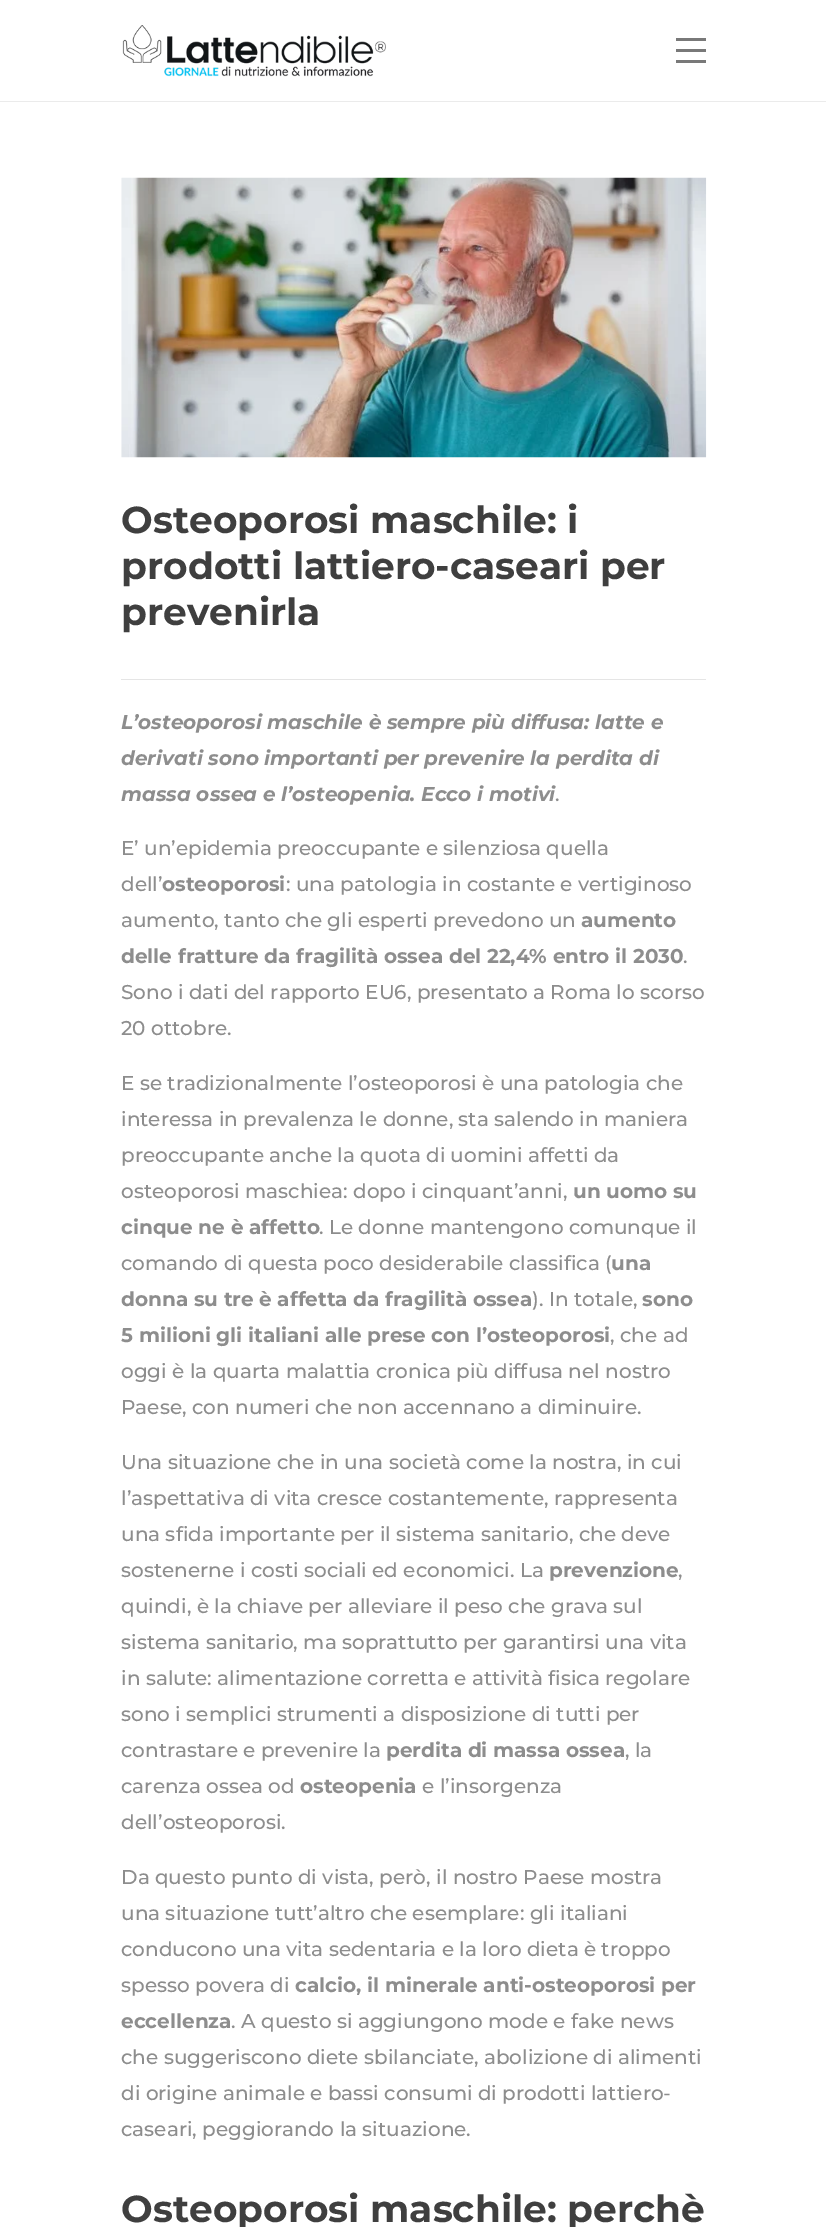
%!PS
<< /PageSize [826 2227] >> setpagedevice
/co { dup -16 bitshift 255 div exch dup -8 bitshift 255 and 255 div exch 255 and 255 div setrgbcolor } def
/fn { [ exch dup neg 0 0 3 -1 roll 0 0 ] selectfont } def
/tx { co fn moveto show } def
/bx { co rectfill } def
/im { 5 dict begin { /h /w /y /x /name } { exch def } forall
  gsave x y translate w h scale
  w h 8 [w 0 0 h 0 0] name (r) file false 3 colorimage grestore end } def
0 2227 translate 1 -1 scale
4 setmiterlimit
0 0 826 2227 16#FFFFFF bx
0 101 826 1 16#EBEBEB bx
(media/1.raw) 122 25 264 52 im
676 49 30 3 16#797979 bx
676 38 30 3 16#797979 bx
676 60 30 3 16#797979 bx
(media/2.raw) 121 177 586 281 im
121 679 585 1 16#E5E5E5 bx
(Osteoporosi maschile: i) 121 533 /Montserrat-Bold 37.5 16#3F3F3F tx
(prodotti lattiero-caseari per) 121 579 /Montserrat-Bold 37.5 16#3F3F3F tx
(prevenirla) 121 625 /Montserrat-Bold 37.5 16#3F3F3F tx
(L’osteoporosi maschile è sempre più diffusa: latte e) 121 729 /Montserrat-BoldItalic 20 16#8D8D8D tx
(derivati sono importanti per prevenire la perdita di) 121 765 /Montserrat-BoldItalic 20 16#8D8D8D tx
(massa ossea e l’osteopenia. Ecco i motivi) 121 801 /Montserrat-BoldItalic 20 16#8D8D8D tx
(.) 555 801 /Montserrat-Medium 20 16#8D8D8D tx
(E’ un’epidemia preoccupante e silenziosa quella) 121 855 /Montserrat-Medium 20 16#8D8D8D tx
(dell’) 121 891 /Montserrat-Medium 20 16#8D8D8D tx
(osteoporosi) 162 891 /Montserrat-Bold 20 16#8D8D8D tx
(: una patologia in costante e vertiginoso) 286 891 /Montserrat-Medium 20 16#8D8D8D tx
(aumento, tanto che gli esperti prevedono un) 121 927 /Montserrat-Medium 20 16#8D8D8D tx
(aumento) 581 927 /Montserrat-Bold 20 16#8D8D8D tx
(delle fratture da fragilità ossea del 22,4% entro il 2030) 121 963 /Montserrat-Bold 20 16#8D8D8D tx
(.) 683 963 /Montserrat-Medium 20 16#8D8D8D tx
(Sono i dati del rapporto EU6, presentato a Roma lo scorso) 121 999 /Montserrat-Medium 20 16#8D8D8D tx
(20 ottobre.) 121 1035 /Montserrat-Medium 20 16#8D8D8D tx
(E se tradizionalmente l’osteoporosi è una patologia che) 121 1090 /Montserrat-Medium 20 16#8D8D8D tx
(interessa in prevalenza le donne, sta salendo in maniera) 121 1126 /Montserrat-Medium 20 16#8D8D8D tx
(preoccupante anche la quota di uomini affetti da) 121 1162 /Montserrat-Medium 20 16#8D8D8D tx
(osteoporosi maschiea: dopo i cinquant’anni,) 121 1198 /Montserrat-Medium 20 16#8D8D8D tx
(un uomo su) 573 1198 /Montserrat-Bold 20 16#8D8D8D tx
(cinque ne è affetto) 121 1234 /Montserrat-Bold 20 16#8D8D8D tx
(. Le donne mantengono comunque il) 319 1234 /Montserrat-Medium 20 16#8D8D8D tx
(comando di questa poco desiderabile classifica \() 121 1270 /Montserrat-Medium 20 16#8D8D8D tx
(una) 611 1270 /Montserrat-Bold 20 16#8D8D8D tx
(donna su tre è affetta da fragilità ossea) 121 1306 /Montserrat-Bold 20 16#8D8D8D tx
(\). In totale,) 532 1306 /Montserrat-Medium 20 16#8D8D8D tx
(sono) 642 1306 /Montserrat-Bold 20 16#8D8D8D tx
(5 milioni gli italiani alle prese con l’osteoporosi) 121 1342 /Montserrat-Bold 20 16#8D8D8D tx
(, che ad) 610 1342 /Montserrat-Medium 20 16#8D8D8D tx
(oggi è la quarta malattia cronica più diffusa nel nostro) 121 1378 /Montserrat-Medium 20 16#8D8D8D tx
(Paese, con numeri che non accennano a diminuire.) 121 1414 /Montserrat-Medium 20 16#8D8D8D tx
(Una situazione che in una società come la nostra, in cui) 121 1469 /Montserrat-Medium 20 16#8D8D8D tx
(l’aspettativa di vita cresce costantemente, rappresenta) 121 1505 /Montserrat-Medium 20 16#8D8D8D tx
(una sfida importante per il sistema sanitario, che deve) 121 1541 /Montserrat-Medium 20 16#8D8D8D tx
(sostenerne i costi sociali ed economici. La) 121 1577 /Montserrat-Medium 20 16#8D8D8D tx
(prevenzione) 549 1577 /Montserrat-Bold 20 16#8D8D8D tx
(,) 678 1577 /Montserrat-Medium 20 16#8D8D8D tx
(quindi, è la chiave per alleviare il peso che grava sul) 121 1613 /Montserrat-Medium 20 16#8D8D8D tx
(sistema sanitario, ma soprattutto per garantirsi una vita) 121 1649 /Montserrat-Medium 20 16#8D8D8D tx
(in salute: alimentazione corretta e attività fisica regolare) 121 1685 /Montserrat-Medium 20 16#8D8D8D tx
(sono i semplici strumenti a disposizione di tutti per) 121 1721 /Montserrat-Medium 20 16#8D8D8D tx
(contrastare e prevenire la) 121 1757 /Montserrat-Medium 20 16#8D8D8D tx
(perdita di massa ossea) 386 1757 /Montserrat-Bold 20 16#8D8D8D tx
(, la) 625 1757 /Montserrat-Medium 20 16#8D8D8D tx
(carenza ossea od) 121 1793 /Montserrat-Medium 20 16#8D8D8D tx
(osteopenia) 300 1793 /Montserrat-Bold 20 16#8D8D8D tx
(e l’insorgenza) 422 1793 /Montserrat-Medium 20 16#8D8D8D tx
(dell’osteoporosi.) 121 1829 /Montserrat-Medium 20 16#8D8D8D tx
(Da questo punto di vista, però, il nostro Paese mostra) 121 1884 /Montserrat-Medium 20 16#8D8D8D tx
(una situazione tutt’altro che esemplare: gli italiani) 121 1920 /Montserrat-Medium 20 16#8D8D8D tx
(conducono una vita sedentaria e la loro dieta è troppo) 121 1956 /Montserrat-Medium 20 16#8D8D8D tx
(spesso povera di) 121 1992 /Montserrat-Medium 20 16#8D8D8D tx
(calcio, il minerale anti-osteoporosi per) 295 1992 /Montserrat-Bold 20 16#8D8D8D tx
(eccellenza) 121 2028 /Montserrat-Bold 20 16#8D8D8D tx
(. A questo si aggiungono mode e fake news) 231 2028 /Montserrat-Medium 20 16#8D8D8D tx
(che suggeriscono diete sbilanciate, abolizione di alimenti) 121 2064 /Montserrat-Medium 20 16#8D8D8D tx
(di origine animale e bassi consumi di prodotti lattiero-) 121 2100 /Montserrat-Medium 20 16#8D8D8D tx
(caseari, peggiorando la situazione.) 121 2136 /Montserrat-Medium 20 16#8D8D8D tx
(Osteoporosi maschile: perchè) 121 2222 /Montserrat-Bold 37.5 16#3F3F3F tx
showpage
